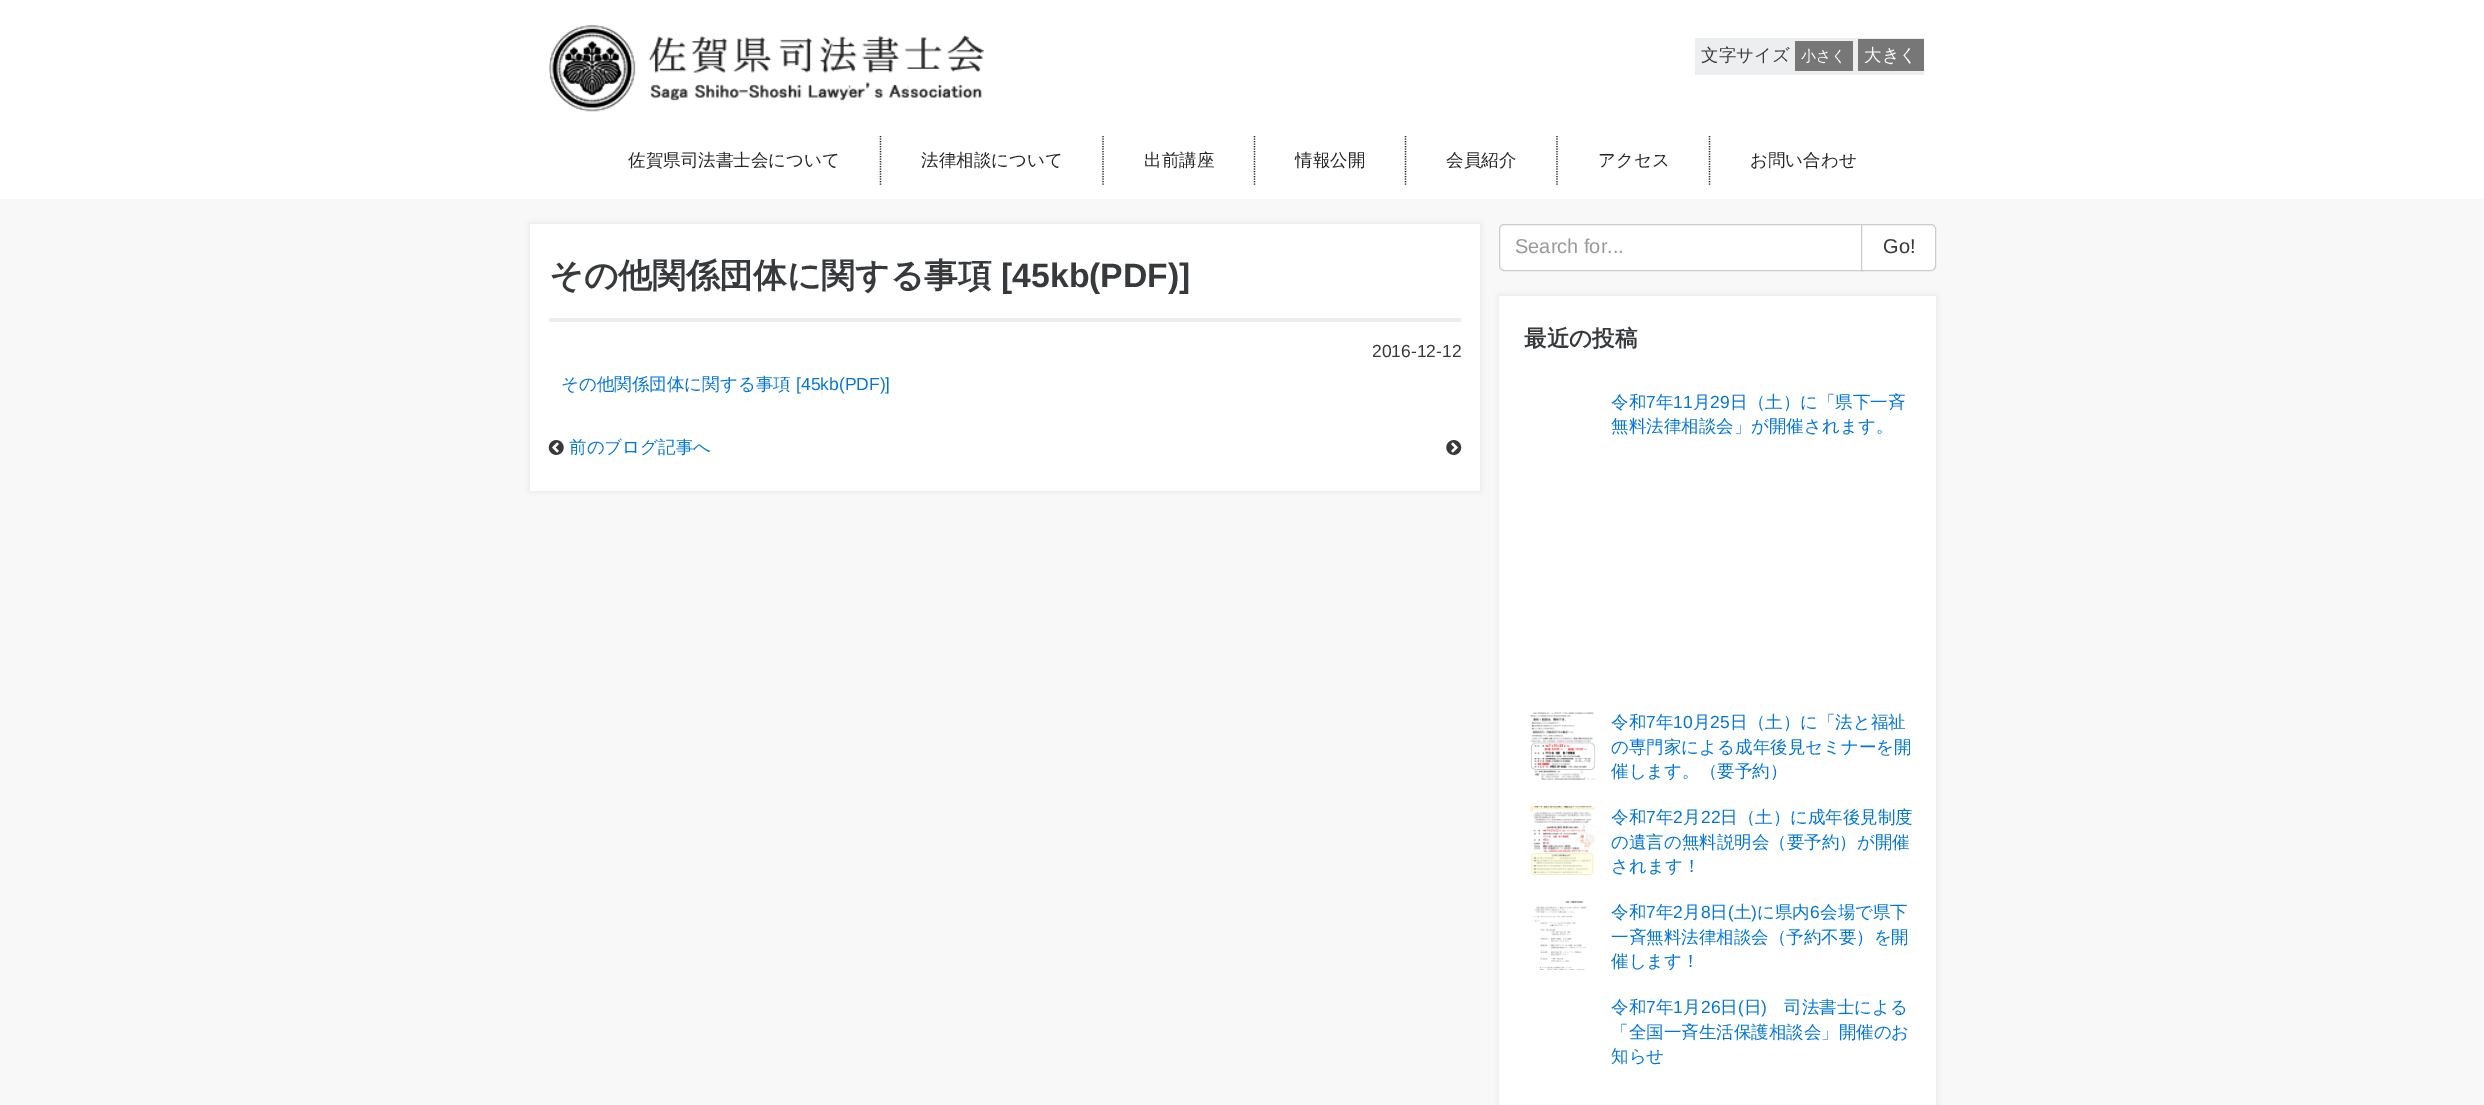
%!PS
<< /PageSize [2484 1105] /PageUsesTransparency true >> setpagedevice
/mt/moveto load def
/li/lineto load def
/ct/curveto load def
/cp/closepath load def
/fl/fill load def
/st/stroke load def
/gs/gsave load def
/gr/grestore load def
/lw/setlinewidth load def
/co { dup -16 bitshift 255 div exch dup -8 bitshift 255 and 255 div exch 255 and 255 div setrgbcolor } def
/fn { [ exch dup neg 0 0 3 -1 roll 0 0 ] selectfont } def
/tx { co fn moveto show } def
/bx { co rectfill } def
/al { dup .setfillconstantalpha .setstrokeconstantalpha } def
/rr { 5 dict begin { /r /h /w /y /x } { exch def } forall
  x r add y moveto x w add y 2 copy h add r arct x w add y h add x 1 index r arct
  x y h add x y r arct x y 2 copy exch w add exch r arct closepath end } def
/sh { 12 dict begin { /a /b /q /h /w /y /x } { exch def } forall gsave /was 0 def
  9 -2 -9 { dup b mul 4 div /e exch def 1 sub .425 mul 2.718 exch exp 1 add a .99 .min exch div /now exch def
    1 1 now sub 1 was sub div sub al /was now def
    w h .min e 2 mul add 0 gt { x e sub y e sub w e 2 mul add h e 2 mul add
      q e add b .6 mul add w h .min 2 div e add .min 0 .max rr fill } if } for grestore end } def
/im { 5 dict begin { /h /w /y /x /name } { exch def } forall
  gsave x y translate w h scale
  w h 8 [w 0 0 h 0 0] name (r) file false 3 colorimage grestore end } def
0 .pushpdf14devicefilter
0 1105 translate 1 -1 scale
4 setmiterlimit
0 0 2484 1105 16#F8F8F8 bx
0 0 2484 199 16#FFFFFF bx
(media/1.raw) 548 25 436 87 im
1695 38 229 37 16#ECEEEF bx
1795 41 58 30 16#777777 bx
1858 39 66 32 16#777777 bx
16#252525 co
1.2 lw
[1.25 1.25] 0 setdash
880.5 136 mt 880.5 186 li st
1103 136 mt 1103 186 li st
1254.5 136 mt 1254.5 186 li st
1405.5 136 mt 1405.5 186 li st
1557 136 mt 1557 186 li st
1709.5 136 mt 1709.5 186 li st
16#E4E4E4 co
530 224 950 267 0 3 1 sh
530 224 950 267 16#FFFFFF bx
549 318 912 4 16#EEEEEE bx
(media/2.raw) 548 440 16 15 im
(media/3.raw) 1446 440 16 15 im
16#FFFFFF co
1504 224.5 mt 1862.5 224.5 li 1862.5 270.5 li 1504 270.5 li 1501.5 270.5 1499.5 268.5 1499.5 266 ct 1499.5 229 li 1499.5 226.5 1501.5 224.5 1504 224.5 ct cp gs fl gr
16#CCCCCC co
1 lw
[] 0 setdash
st
16#FFFFFF co
1861.5 224.5 mt 1931 224.5 li 1933.5 224.5 1935.5 226.5 1935.5 229 ct 1935.5 266 li 1935.5 268.5 1933.5 270.5 1931 270.5 ct 1861.5 270.5 li cp gs fl gr
16#CCCCCC co
st
16#E4E4E4 co
1499 296 437 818 0 3 1 sh
1499 296 437 809 16#FFFFFF bx
(media/4.raw) 1530 712 66 68 im
(media/5.raw) 1530 806 69 69 im
(media/6.raw) 1532 901 55 69 im
(文字サイズ) 1701 61 /WenQuanYiZenHei-Medium 17.5 16#373A3C tx
(小さく) 1801 61 /WenQuanYiZenHei-Medium 15 16#FFFFFF tx
(大きく) 1864 61 /WenQuanYiZenHei-Medium 17.5 16#FFFFFF tx
(佐賀県司法書士会について) 628 166 /WenQuanYiZenHei-Medium 17.5 16#252525 tx
(法律相談について) 921 166 /WenQuanYiZenHei-Medium 17.5 16#252525 tx
(出前講座) 1144 166 /WenQuanYiZenHei-Medium 17.5 16#252525 tx
(情報公開) 1295 166 /WenQuanYiZenHei-Medium 17.5 16#252525 tx
(会員紹介) 1446 166 /WenQuanYiZenHei-Medium 17.5 16#252525 tx
(アクセス) 1598 166 /WenQuanYiZenHei-Medium 17.5 16#252525 tx
(お問い合わせ) 1750 166 /WenQuanYiZenHei-Medium 17.5 16#252525 tx
(その他関係団体に関する事項) 549 287 /WenQuanYiZenHei-Bold 33.75 16#373A3C tx
([45kb\(PDF\)]) 1001 287 /LiberationSans-Bold 33.75 16#373A3C tx
(2016-12-12) 1372 357 /LiberationSans-Regular 17.5 16#373A3C tx
(その他関係団体に関する事項) 561 390 /WenQuanYiZenHei-Medium 17.5 16#0275D8 tx
([45kb\(PDF\)]) 796 390 /LiberationSans-Regular 17.5 16#0275D8 tx
(前のブログ記事へ) 569 453 /WenQuanYiZenHei-Medium 17.5 16#0275D8 tx
(Search for...) 1515 253 /LiberationSans-Regular 20 16#999999 tx
(Go!) 1883 253 /LiberationSans-Regular 20 16#373A3C tx
(最近の投稿) 1524 346 /WenQuanYiZenHei-Bold 22.5 16#373A3C tx
(令和) 1611 408 /WenQuanYiZenHei-Medium 17.5 16#0275D8 tx
(7) 1646 408 /LiberationSans-Regular 17.5 16#0275D8 tx
(年) 1656 408 /WenQuanYiZenHei-Medium 17.5 16#0275D8 tx
(11) 1673 408 /LiberationSans-Regular 17.5 16#0275D8 tx
(月) 1693 408 /WenQuanYiZenHei-Medium 17.5 16#0275D8 tx
(29) 1710 408 /LiberationSans-Regular 17.5 16#0275D8 tx
(日（土）に「県下一斉) 1730 408 /WenQuanYiZenHei-Medium 17.5 16#0275D8 tx
(無料法律相談会」が開催されます。) 1611 432 /WenQuanYiZenHei-Medium 17.5 16#0275D8 tx
(令和) 1611 728 /WenQuanYiZenHei-Medium 17.5 16#0275D8 tx
(7) 1646 728 /LiberationSans-Regular 17.5 16#0275D8 tx
(年) 1656 728 /WenQuanYiZenHei-Medium 17.5 16#0275D8 tx
(10) 1673 728 /LiberationSans-Regular 17.5 16#0275D8 tx
(月) 1693 728 /WenQuanYiZenHei-Medium 17.5 16#0275D8 tx
(25) 1710 728 /LiberationSans-Regular 17.5 16#0275D8 tx
(日（土）に「法と福祉) 1730 728 /WenQuanYiZenHei-Medium 17.5 16#0275D8 tx
(の専門家による成年後見セミナーを開) 1611 753 /WenQuanYiZenHei-Medium 17.5 16#0275D8 tx
(催します。（要予約）) 1611 777 /WenQuanYiZenHei-Medium 17.5 16#0275D8 tx
(令和) 1611 823 /WenQuanYiZenHei-Medium 17.5 16#0275D8 tx
(7) 1646 823 /LiberationSans-Regular 17.5 16#0275D8 tx
(年) 1656 823 /WenQuanYiZenHei-Medium 17.5 16#0275D8 tx
(2) 1673 823 /LiberationSans-Regular 17.5 16#0275D8 tx
(月) 1683 823 /WenQuanYiZenHei-Medium 17.5 16#0275D8 tx
(22) 1701 823 /LiberationSans-Regular 17.5 16#0275D8 tx
(日（土）に成年後見制度) 1720 823 /WenQuanYiZenHei-Medium 17.5 16#0275D8 tx
(の遺言の無料説明会（要予約）が開催) 1611 848 /WenQuanYiZenHei-Medium 17.5 16#0275D8 tx
(されます！) 1611 872 /WenQuanYiZenHei-Medium 17.5 16#0275D8 tx
(令和) 1611 918 /WenQuanYiZenHei-Medium 17.5 16#0275D8 tx
(7) 1646 918 /LiberationSans-Regular 17.5 16#0275D8 tx
(年) 1656 918 /WenQuanYiZenHei-Medium 17.5 16#0275D8 tx
(2) 1673 918 /LiberationSans-Regular 17.5 16#0275D8 tx
(月) 1683 918 /WenQuanYiZenHei-Medium 17.5 16#0275D8 tx
(8) 1701 918 /LiberationSans-Regular 17.5 16#0275D8 tx
(日) 1710 918 /WenQuanYiZenHei-Medium 17.5 16#0275D8 tx
(\() 1728 918 /LiberationSans-Regular 17.5 16#0275D8 tx
(土) 1734 918 /WenQuanYiZenHei-Medium 17.5 16#0275D8 tx
(\)) 1751 918 /LiberationSans-Regular 17.5 16#0275D8 tx
(に県内) 1757 918 /WenQuanYiZenHei-Medium 17.5 16#0275D8 tx
(6) 1810 918 /LiberationSans-Regular 17.5 16#0275D8 tx
(会場で県下) 1820 918 /WenQuanYiZenHei-Medium 17.5 16#0275D8 tx
(一斉無料法律相談会（予約不要）を開) 1611 943 /WenQuanYiZenHei-Medium 17.5 16#0275D8 tx
(催します！) 1611 967 /WenQuanYiZenHei-Medium 17.5 16#0275D8 tx
(令和) 1611 1013 /WenQuanYiZenHei-Medium 17.5 16#0275D8 tx
(7) 1646 1013 /LiberationSans-Regular 17.5 16#0275D8 tx
(年) 1656 1013 /WenQuanYiZenHei-Medium 17.5 16#0275D8 tx
(1) 1673 1013 /LiberationSans-Regular 17.5 16#0275D8 tx
(月) 1683 1013 /WenQuanYiZenHei-Medium 17.5 16#0275D8 tx
(26) 1701 1013 /LiberationSans-Regular 17.5 16#0275D8 tx
(日) 1720 1013 /WenQuanYiZenHei-Medium 17.5 16#0275D8 tx
(\() 1738 1013 /LiberationSans-Regular 17.5 16#0275D8 tx
(日) 1744 1013 /WenQuanYiZenHei-Medium 17.5 16#0275D8 tx
(\)) 1761 1013 /LiberationSans-Regular 17.5 16#0275D8 tx
(司法書士による) 1784 1013 /WenQuanYiZenHei-Medium 17.5 16#0275D8 tx
(「全国一斉生活保護相談会」開催のお) 1611 1038 /WenQuanYiZenHei-Medium 17.5 16#0275D8 tx
(知らせ) 1611 1062 /WenQuanYiZenHei-Medium 17.5 16#0275D8 tx
.poppdf14devicefilter showpage
